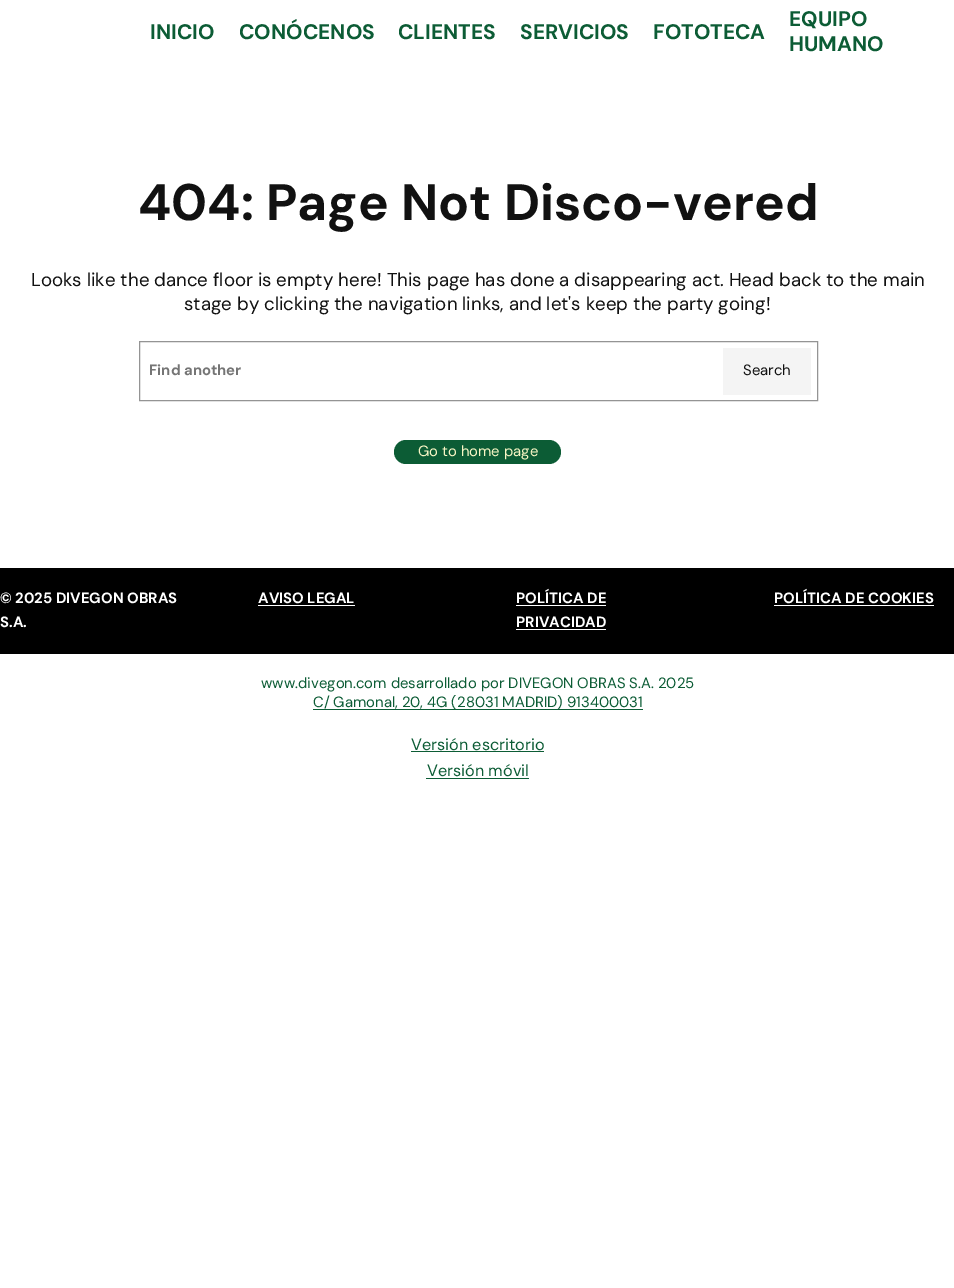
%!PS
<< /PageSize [954 1288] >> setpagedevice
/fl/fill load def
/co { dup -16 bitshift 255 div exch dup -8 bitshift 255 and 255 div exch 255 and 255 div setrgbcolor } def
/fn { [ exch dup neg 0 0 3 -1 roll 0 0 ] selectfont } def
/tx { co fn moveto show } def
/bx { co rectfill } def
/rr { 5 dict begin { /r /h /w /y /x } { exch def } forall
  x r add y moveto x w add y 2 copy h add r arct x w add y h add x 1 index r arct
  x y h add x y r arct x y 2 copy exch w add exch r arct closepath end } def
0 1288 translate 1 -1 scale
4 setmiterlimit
0 0 954 1288 16#FFFFFF bx
16#949494 co
139.5 341.5 678 59 rectstroke
723 348 88 47 16#F4F4F4 bx
16#0C5C35 co
394 440 167 24 12 rr fl
0 568 954 86 16#000000 bx
258 605 97 1 16#FFFFFF bx
516 605 90 1 16#FFFFFF bx
516 629 90 1 16#FFFFFF bx
774 605 160 1 16#FFFFFF bx
313 709 330 1 16#0C5C35 bx
411 751 133 1 16#0C5C35 bx
426 778 103 1 16#0C5C35 bx
(INICIO) 150 39 /DMSans-Bold 21 16#0C5C35 tx
(CONÓCENOS) 239 39 /DMSans-Bold 21 16#0C5C35 tx
(CLIENTES) 398 39 /DMSans-Bold 21 16#0C5C35 tx
(SERVICIOS) 520 39 /DMSans-Bold 21 16#0C5C35 tx
(FOTOTECA) 653 39 /DMSans-Bold 21 16#0C5C35 tx
(EQUIPO) 789 26 /DMSans-Bold 21 16#0C5C35 tx
(HUMANO) 789 51 /DMSans-Bold 21 16#0C5C35 tx
(404: Page Not Disco-vered) 138 220 /DMSans-Bold 51.25 16#111111 tx
(Looks like the dance floor is empty here! This page has done a disappearing act. Head back to the main) 31 286 /DMSans-Regular 18.7 16#111111 tx
(stage by clicking the navigation links, and let's keep the party going!) 184 310 /DMSans-Regular 18.7 16#111111 tx
(Find another) 149 375 /DMSans-Bold 14.9 16#757575 tx
(Search) 743 375 /DMSans-Regular 14.9 16#111111 tx
(Go to home page) 418 456 /DMSans-Regular 14.9 16#F8F6C5 tx
(© 2025 DIVEGON OBRAS) 0 603 /DMSans-Bold 14.9 16#FFFFFF tx
(S.A.) 0 627 /DMSans-Bold 14.9 16#FFFFFF tx
(AVISO LEGAL) 258 603 /DMSans-Bold 14.9 16#FFFFFF tx
(POLÍTICA DE) 516 603 /DMSans-Bold 14.9 16#FFFFFF tx
(PRIVACIDAD) 516 627 /DMSans-Bold 14.9 16#FFFFFF tx
(POLÍTICA DE COOKIES) 774 603 /DMSans-Bold 14.9 16#FFFFFF tx
(www.divegon.com desarrollado por DIVEGON OBRAS S.A. 2025) 261 688 /DMSans-Regular 14.9 16#0C5C35 tx
(C/ Gamonal, 20, 4G \(28031 MADRID\) 913400031) 313 707 /DMSans-Regular 14.9 16#0C5C35 tx
(Versión escritorio) 411 750 /DMSans-Regular 16.25 16#0C5C35 tx
(Versión móvil) 427 776 /DMSans-Regular 16.25 16#0C5C35 tx
showpage
